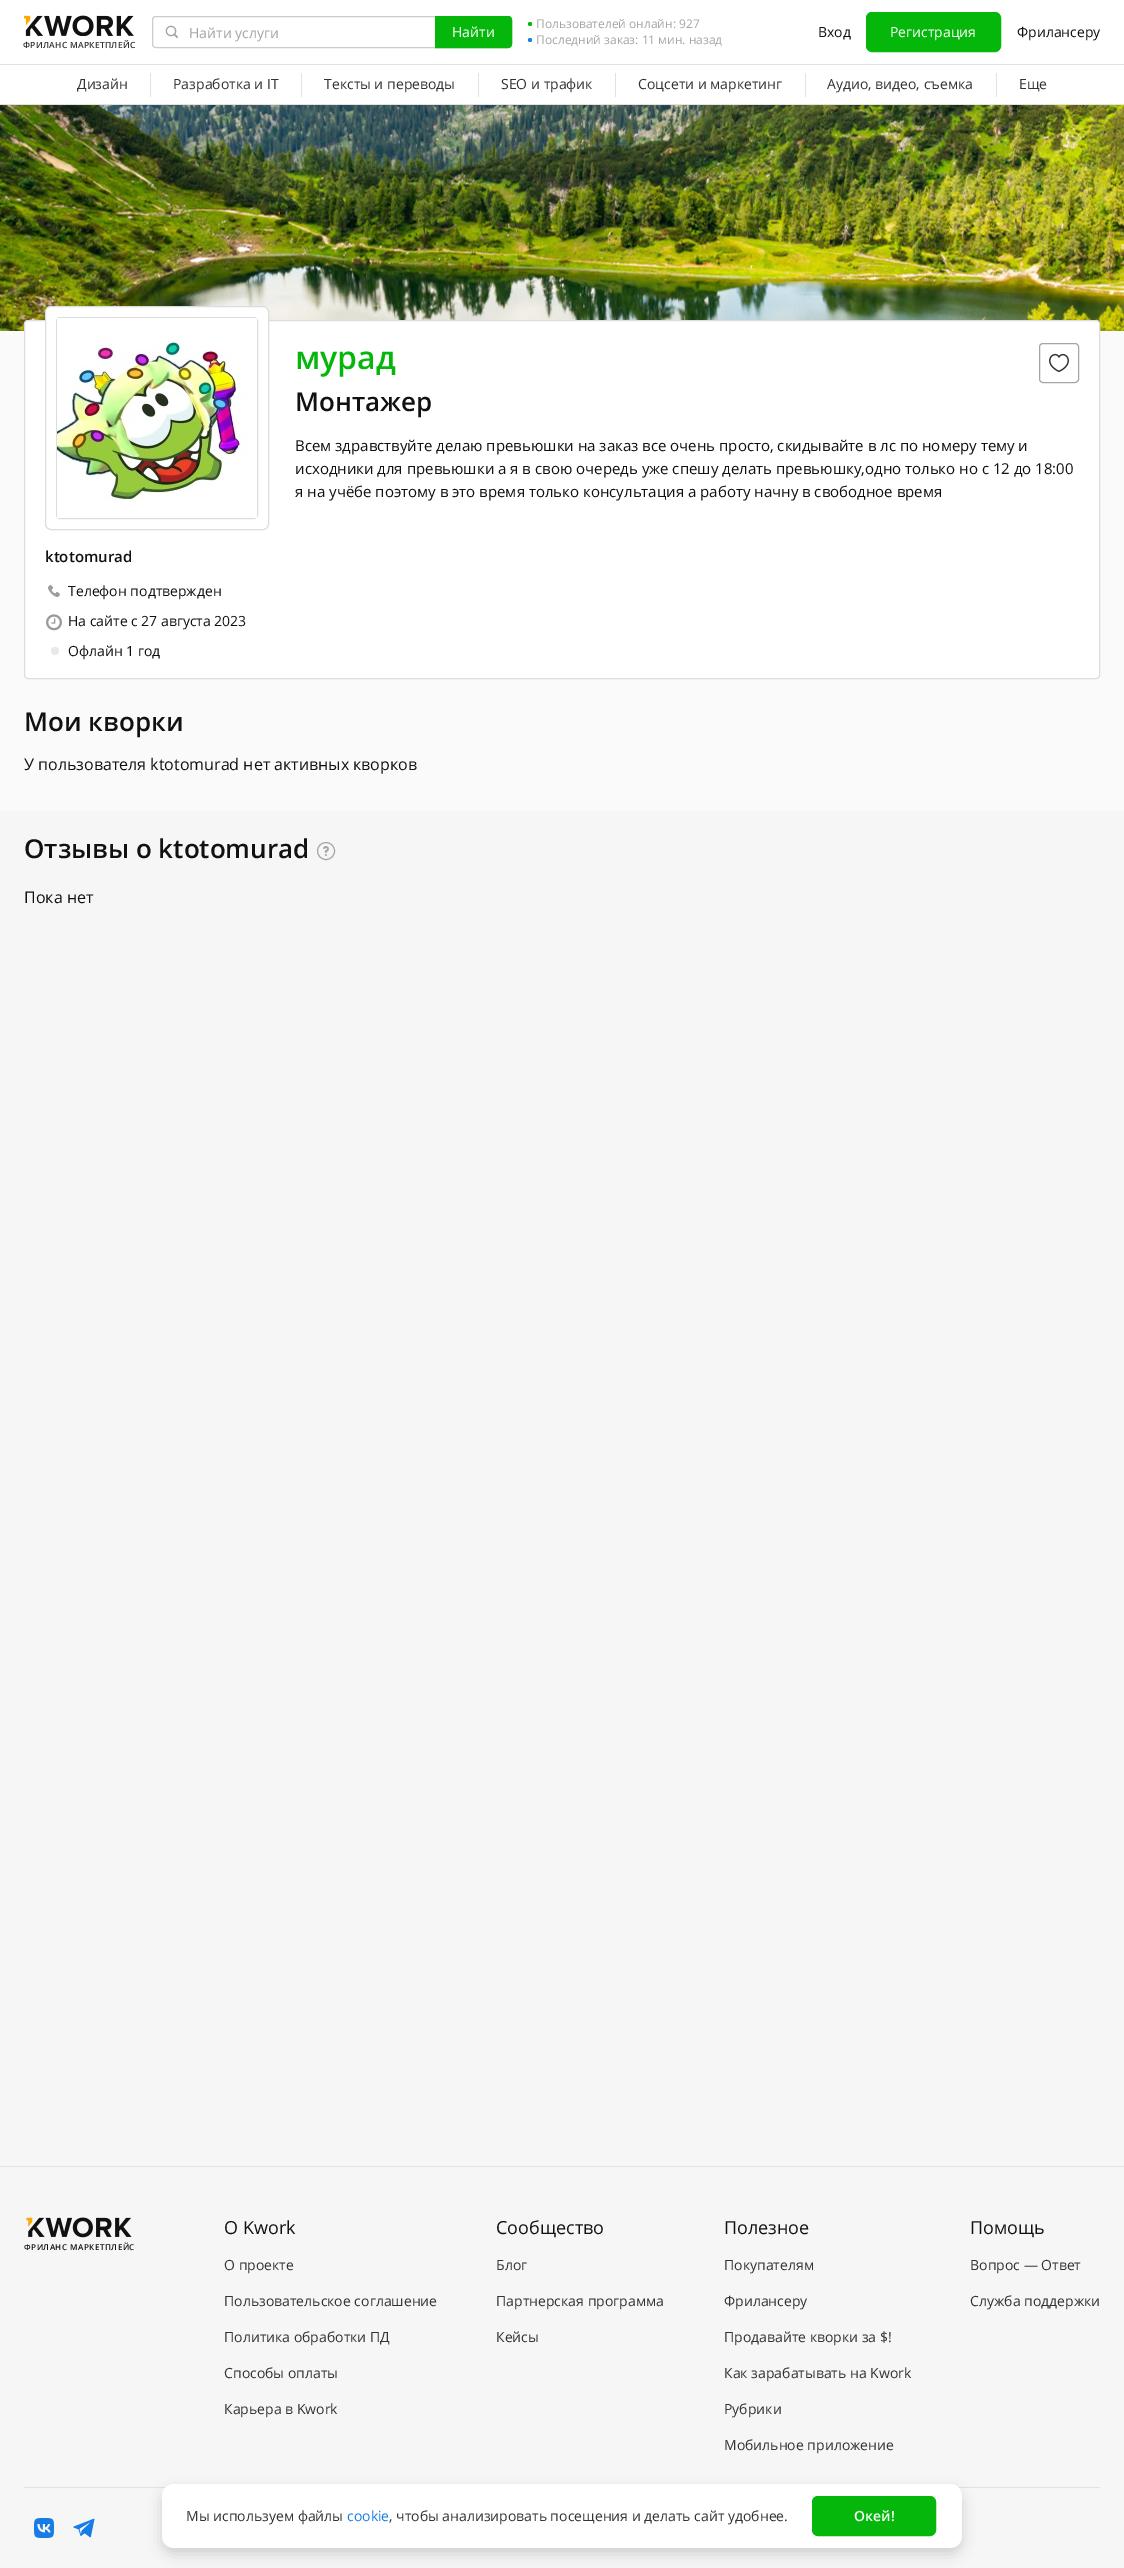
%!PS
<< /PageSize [1124 2568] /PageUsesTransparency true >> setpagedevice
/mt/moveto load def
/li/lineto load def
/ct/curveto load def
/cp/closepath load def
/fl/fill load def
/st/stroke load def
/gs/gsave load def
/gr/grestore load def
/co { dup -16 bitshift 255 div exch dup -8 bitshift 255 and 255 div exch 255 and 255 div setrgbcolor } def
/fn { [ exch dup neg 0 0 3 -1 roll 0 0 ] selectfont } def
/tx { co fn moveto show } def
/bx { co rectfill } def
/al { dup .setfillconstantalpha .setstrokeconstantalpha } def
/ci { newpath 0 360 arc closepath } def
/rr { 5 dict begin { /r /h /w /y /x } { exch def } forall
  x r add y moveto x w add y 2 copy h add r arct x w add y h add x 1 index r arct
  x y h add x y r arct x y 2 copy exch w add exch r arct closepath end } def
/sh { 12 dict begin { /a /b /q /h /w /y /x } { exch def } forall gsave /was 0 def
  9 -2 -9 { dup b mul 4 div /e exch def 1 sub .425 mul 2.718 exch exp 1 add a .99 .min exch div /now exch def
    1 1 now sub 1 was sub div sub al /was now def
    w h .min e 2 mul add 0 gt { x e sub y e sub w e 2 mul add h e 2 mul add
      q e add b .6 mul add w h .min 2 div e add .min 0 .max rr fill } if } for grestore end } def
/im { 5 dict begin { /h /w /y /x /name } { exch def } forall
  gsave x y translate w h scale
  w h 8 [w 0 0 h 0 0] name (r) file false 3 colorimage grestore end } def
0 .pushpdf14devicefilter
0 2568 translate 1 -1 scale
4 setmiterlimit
0 0 1124 2568 16#F6F6F6 bx
0 0 1124 104 16#FFFFFF bx
0 104 1124 1 16#E2E2E2 bx
16#CCCCCC co
152.5 16.5 359 31 3.5 rr st
(media/1.raw) 165 25 13 13 im
16#04B70A co
435.5 16.5 mt 508 16.5 li 510 16.5 511.5 18 511.5 20 ct 511.5 44 li 511.5 46 510 47.5 508 47.5 ct 435.5 47.5 li cp gs fl gr
st
530 24 2 ci fl
16#177DE5 co
530 40 2 ci fl
16#04B70A co
866.5 12.5 134 39 5.5 rr gs fl gr
st
(media/2.raw) 24 15 110 21 im
0 64 1124 1 16#E2E2E2 bx
150 73 1 24 16#E2E2E2 bx
301 73 1 24 16#E2E2E2 bx
478 73 1 24 16#E2E2E2 bx
615 73 1 24 16#E2E2E2 bx
805 73 1 24 16#E2E2E2 bx
996 73 1 24 16#E2E2E2 bx
(media/3.raw) 0 105 1124 226 im
0 331 1124 480 16#FAFAFA bx
16#FFFFFF co
24.5 320.5 1075 358 3.5 rr gs fl gr
16#DDDDDD co
st
16#A5A5A5 co
1039.5 343.5 39 39 3.5 rr st
(media/4.raw) 1049 353 20 20 im
16#FFFFFF co
45.5 306.5 223 223 5.5 rr gs fl gr
16#DDDDDD co
st
56.5 317.5 201 201 3.5 rr st
(media/5.raw) 57 318 200 200 im
(media/6.raw) 48 585 12 12 im
(media/7.raw) 46 614 16 17 im
16#E8E8E8 co
55 651 4 ci fl
16#A5A5A5 co
326 851 8.5 ci st
(media/8.raw) 323 846 6 10 im
0 2166 1124 1 16#E2E2E2 bx
(media/9.raw) 26 2217 106 21 im
24 2487 1076 1 16#E2E2E2 bx
(media/10.raw) 34 2518 20 20 im
(media/11.raw) 73 2518 22 20 im
16#000000 co
162 2490 800 64 12 7 .16 sh
16#FFFFFF co
162 2484 800 64 12 rr fl
16#04B70A co
812.5 2496.5 123 39 5.5 rr gs fl gr
st
(Найти услуги) 189 38 /OpenSans-Regular 14 16#A5A5A5 tx
(Найти) 452 37 /OpenSans-Regular 14 16#FFFFFF tx
(Пользователей онлайн: 927) 536 28 /OpenSans-Regular 12 16#A5A5A5 tx
(Последний заказ: 11 мин. назад) 536 44 /OpenSans-Regular 12 16#A5A5A5 tx
(Вход) 818 37 /OpenSans-Regular 14 16#111111 tx
(Регистрация) 890 37 /OpenSans-Regular 14 16#FFFFFF tx
(Фрилансеру) 1017 37 /OpenSans-Regular 14 16#111111 tx
/OpenSans-SemiBold 8.5 fn
16#333333 co
23 48 mt .25 0 (ФРИЛАНС МАРКЕТПЛЕЙС) ashow
(Дизайн) 77 89 /OpenSans-Regular 14 16#333333 tx
(Разработка и IT) 173 89 /OpenSans-Regular 14 16#333333 tx
(Тексты и переводы) 324 89 /OpenSans-Regular 14 16#333333 tx
(SEO и трафик) 501 89 /OpenSans-Regular 14 16#333333 tx
(Соцсети и маркетинг) 638 89 /OpenSans-Regular 14 16#333333 tx
(Аудио, видео, съемка) 827 89 /OpenSans-Regular 14 16#333333 tx
(Еще) 1019 89 /OpenSans-Regular 14 16#333333 tx
(мурад) 295 369 /OpenSans-SemiBold 32 16#04B70A tx
(Монтажер) 295 411 /OpenSans-SemiBold 26 16#111111 tx
(Всем здравствуйте делаю превьюшки на заказ все очень просто, скидывайте в лс по номеру тему и) 295 451 /OpenSans-Regular 15 16#111111 tx
(исходники для превьюшки а я в свою очередь уже спешу делать превьюшку,одно только но с 12 до 18:00) 295 474 /OpenSans-Regular 15 16#111111 tx
(я на учёбе поэтому в это время только консультация а работу начну в свободное время) 295 497 /OpenSans-Regular 15 16#111111 tx
(ktotomurad) 45 562 /OpenSans-SemiBold 15 16#111111 tx
(Телефон подтвержден) 68 596 /OpenSans-Regular 14 16#111111 tx
(На сайте с 27 августа 2023) 68 626 /OpenSans-Regular 14 16#111111 tx
(Офлайн 1 год) 68 656 /OpenSans-Regular 14 16#111111 tx
(Мои кворки) 24 731 /OpenSans-SemiBold 26 16#111111 tx
(У пользователя ktotomurad нет активных кворков) 24 770 /OpenSans-Regular 16 16#111111 tx
(Отзывы о ktotomurad) 24 858 /OpenSans-SemiBold 26 16#111111 tx
(Пока нет) 24 903 /OpenSans-Regular 16 16#111111 tx
/OpenSans-SemiBold 8 fn
24 2250 mt .5 0 (ФРИЛАНС МАРКЕТПЛЕЙС) ashow
(О Kwork) 224 2234 /OpenSans-Regular 18 16#111111 tx
(О проекте) 224 2270 /OpenSans-Regular 14 16#333333 tx
(Пользовательское соглашение) 224 2306 /OpenSans-Regular 14 16#333333 tx
(Политика обработки ПД) 224 2342 /OpenSans-Regular 14 16#333333 tx
(Способы оплаты) 224 2378 /OpenSans-Regular 14 16#333333 tx
(Карьера в Kwork) 224 2414 /OpenSans-Regular 14 16#333333 tx
(Сообщество) 496 2234 /OpenSans-Regular 18 16#111111 tx
(Блог) 496 2270 /OpenSans-Regular 14 16#333333 tx
(Партнерская программа) 496 2306 /OpenSans-Regular 14 16#333333 tx
(Кейсы) 496 2342 /OpenSans-Regular 14 16#333333 tx
(Полезное) 724 2234 /OpenSans-Regular 18 16#111111 tx
(Покупателям) 724 2270 /OpenSans-Regular 14 16#333333 tx
(Фрилансеру) 724 2306 /OpenSans-Regular 14 16#333333 tx
(Продавайте кворки за $!) 724 2342 /OpenSans-Regular 14 16#333333 tx
(Как зарабатывать на Kwork) 724 2378 /OpenSans-Regular 14 16#333333 tx
(Рубрики) 724 2414 /OpenSans-Regular 14 16#333333 tx
(Мобильное приложение) 724 2450 /OpenSans-Regular 14 16#333333 tx
(Помощь) 970 2234 /OpenSans-Regular 18 16#111111 tx
(Вопрос — Ответ) 970 2270 /OpenSans-Regular 14 16#333333 tx
(Служба поддержки) 970 2306 /OpenSans-Regular 14 16#333333 tx
(Мы используем файлы) 186 2521 /OpenSans-Regular 14 16#333333 tx
(cookie) 347 2521 /OpenSans-Regular 14 16#177DE5 tx
(, чтобы анализировать посещения и делать сайт удобнее.) 389 2521 /OpenSans-Regular 14 16#333333 tx
(Окей!) 854 2521 /OpenSans-SemiBold 14 16#FFFFFF tx
.poppdf14devicefilter showpage
